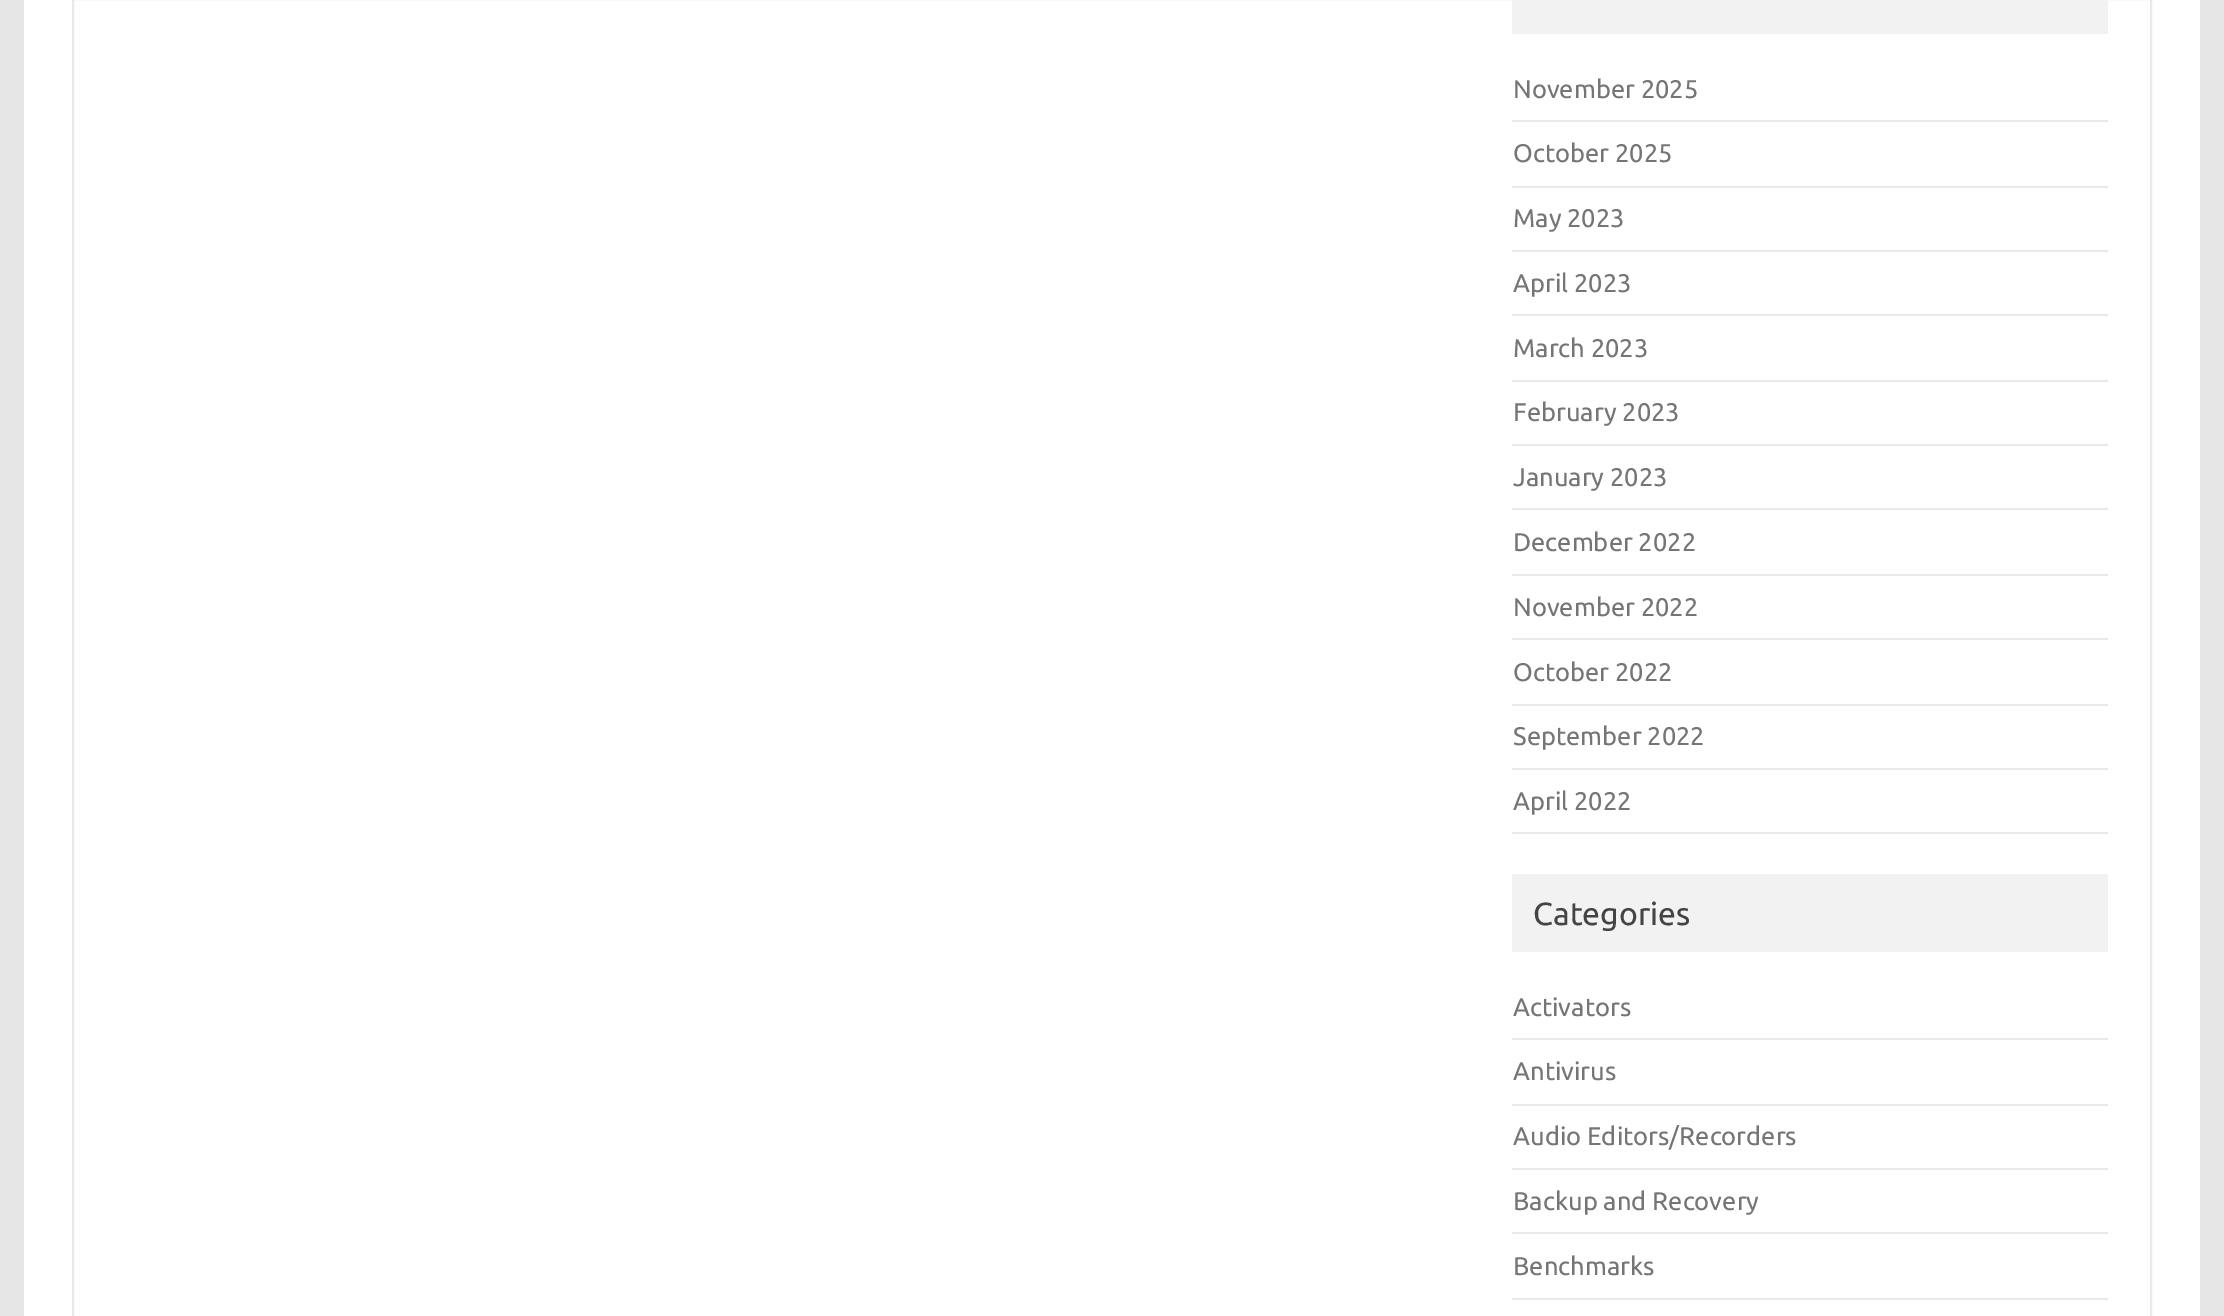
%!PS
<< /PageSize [2224 1316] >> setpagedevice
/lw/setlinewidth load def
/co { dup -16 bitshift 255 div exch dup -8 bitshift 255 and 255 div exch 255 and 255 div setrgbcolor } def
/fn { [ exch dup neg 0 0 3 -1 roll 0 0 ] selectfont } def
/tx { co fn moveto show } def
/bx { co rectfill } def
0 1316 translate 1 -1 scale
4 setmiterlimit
0 0 2224 1316 16#E6E6E6 bx
24 0 2176 1316 16#FFFFFF bx
16#E9E9E9 co
2 lw
73 -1 2078 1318 rectstroke
1512 0 596 34 16#F2F2F2 bx
1512 120 596 2 16#E9E9E9 bx
1512 186 596 2 16#E9E9E9 bx
1512 250 596 2 16#E9E9E9 bx
1512 314 596 2 16#E9E9E9 bx
1512 380 596 2 16#E9E9E9 bx
1512 444 596 2 16#E9E9E9 bx
1512 508 596 2 16#E9E9E9 bx
1512 574 596 2 16#E9E9E9 bx
1512 638 596 2 16#E9E9E9 bx
1512 704 596 2 16#E9E9E9 bx
1512 768 596 2 16#E9E9E9 bx
1512 832 596 2 16#E9E9E9 bx
1512 874 596 78 16#F2F2F2 bx
1512 1038 596 2 16#E9E9E9 bx
1512 1104 596 2 16#E9E9E9 bx
1512 1168 596 2 16#E9E9E9 bx
1512 1232 596 2 16#E9E9E9 bx
1512 1298 596 2 16#E9E9E9 bx
(November 2025) 1513 98 /Ubuntu-Regular 25.5 16#757575 tx
(October 2025) 1513 162 /Ubuntu-Regular 25.5 16#757575 tx
(May 2023) 1513 227 /Ubuntu-Regular 25.5 16#757575 tx
(April 2023) 1513 292 /Ubuntu-Regular 25.5 16#757575 tx
(March 2023) 1513 357 /Ubuntu-Regular 25.5 16#757575 tx
(February 2023) 1513 421 /Ubuntu-Regular 25.5 16#757575 tx
(January 2023) 1513 486 /Ubuntu-Regular 25.5 16#757575 tx
(December 2022) 1513 551 /Ubuntu-Regular 25.5 16#757575 tx
(November 2022) 1513 616 /Ubuntu-Regular 25.5 16#757575 tx
(October 2022) 1513 681 /Ubuntu-Regular 25.5 16#757575 tx
(September 2022) 1513 745 /Ubuntu-Regular 25.5 16#757575 tx
(April 2022) 1513 810 /Ubuntu-Regular 25.5 16#757575 tx
(Categories) 1533 925 /Ubuntu-Regular 32 16#444444 tx
(Activators) 1513 1016 /Ubuntu-Regular 25.5 16#757575 tx
(Antivirus) 1513 1080 /Ubuntu-Regular 25.5 16#757575 tx
(Audio Editors/Recorders) 1513 1145 /Ubuntu-Regular 25.5 16#757575 tx
(Backup and Recovery) 1513 1210 /Ubuntu-Regular 25.5 16#757575 tx
(Benchmarks) 1513 1275 /Ubuntu-Regular 25.5 16#757575 tx
showpage
